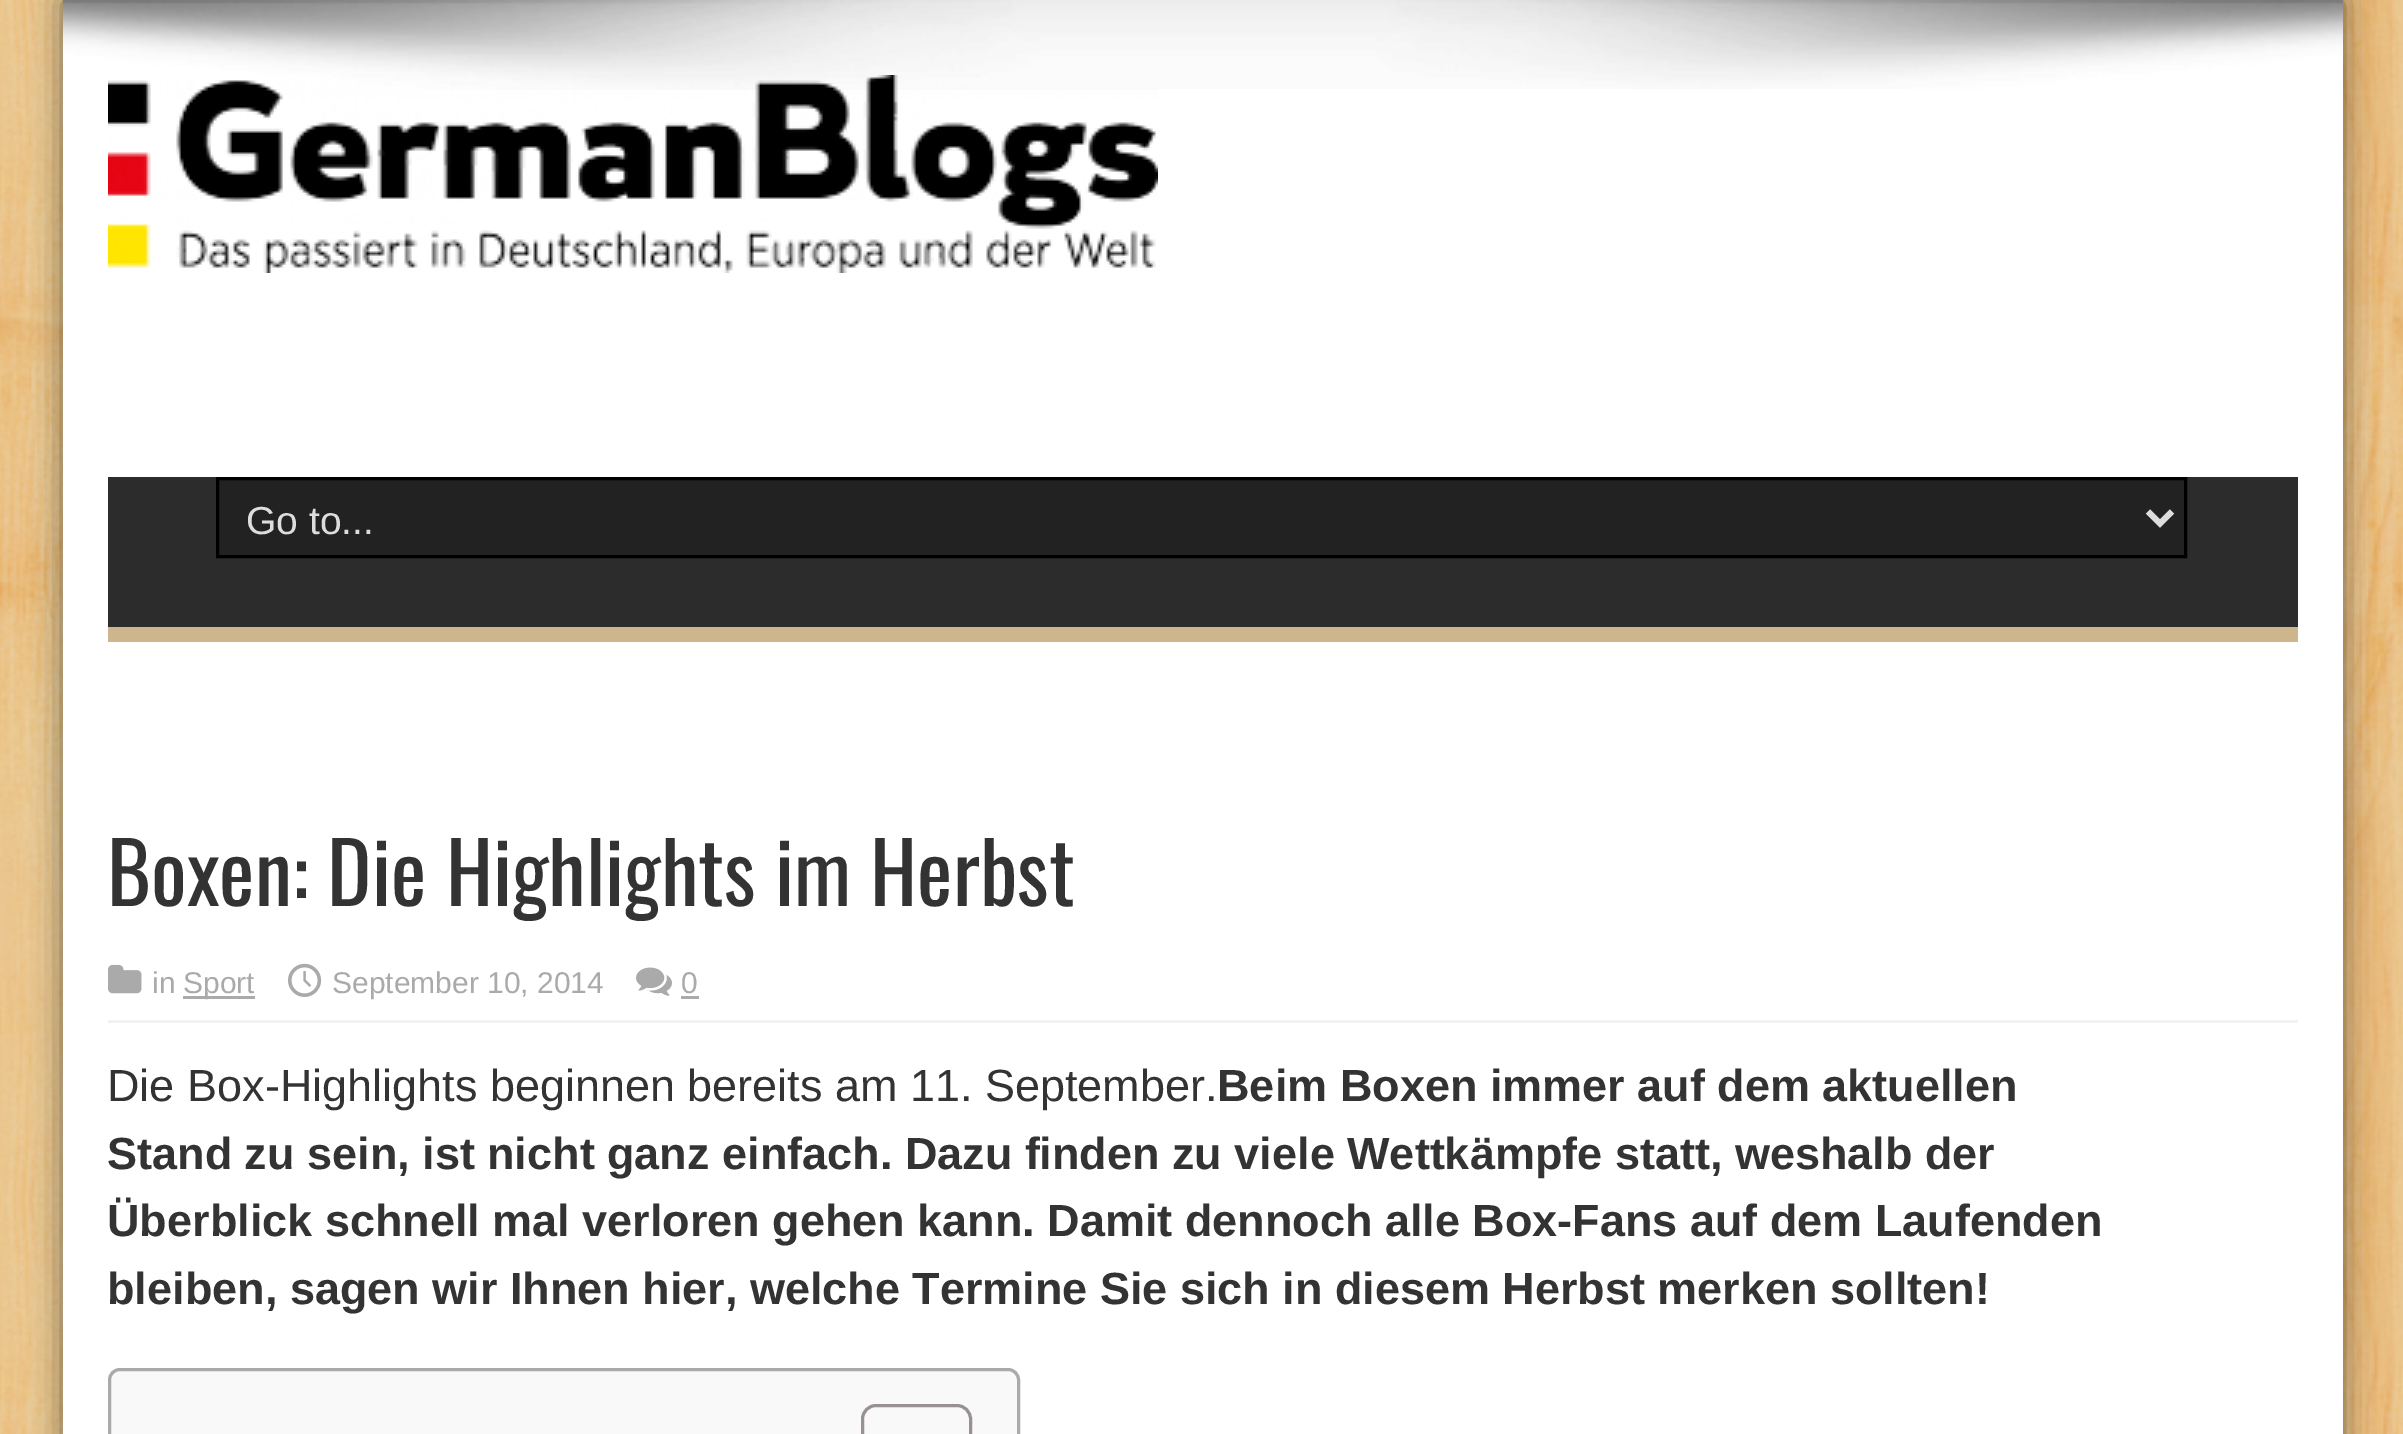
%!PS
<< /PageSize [2403 1434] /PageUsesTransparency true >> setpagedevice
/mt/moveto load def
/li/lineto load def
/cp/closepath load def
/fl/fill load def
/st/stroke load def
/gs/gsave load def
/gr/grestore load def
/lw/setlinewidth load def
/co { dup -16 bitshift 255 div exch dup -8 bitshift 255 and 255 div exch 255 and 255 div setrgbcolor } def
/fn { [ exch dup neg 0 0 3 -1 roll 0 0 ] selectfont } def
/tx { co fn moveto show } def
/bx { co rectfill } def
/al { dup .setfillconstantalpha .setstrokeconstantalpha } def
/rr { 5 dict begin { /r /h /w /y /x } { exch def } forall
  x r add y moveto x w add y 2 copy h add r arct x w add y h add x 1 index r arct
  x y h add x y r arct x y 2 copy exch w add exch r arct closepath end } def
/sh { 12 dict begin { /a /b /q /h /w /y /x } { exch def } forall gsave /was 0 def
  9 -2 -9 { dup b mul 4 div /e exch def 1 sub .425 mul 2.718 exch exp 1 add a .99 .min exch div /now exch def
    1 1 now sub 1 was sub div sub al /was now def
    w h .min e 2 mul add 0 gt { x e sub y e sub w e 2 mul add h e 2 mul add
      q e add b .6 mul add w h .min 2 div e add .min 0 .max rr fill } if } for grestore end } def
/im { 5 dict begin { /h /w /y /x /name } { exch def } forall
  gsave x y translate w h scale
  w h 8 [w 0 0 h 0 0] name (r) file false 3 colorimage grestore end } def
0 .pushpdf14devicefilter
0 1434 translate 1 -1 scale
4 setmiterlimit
0 0 2403 1434 16#FFFFFF bx
(media/1.raw) 0 0 2403 1434 im
16#000000 co
63 0 2280 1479 0 15 .5 sh
63 0 2280 1434 16#FFFFFF bx
(media/2.raw) 63 0 2280 89 im
(media/3.raw) 108 75 1050 198 im
108 477 2190 150 16#2C2C2C bx
108 627 2190 15 16#CDB68C bx
16#222222 co
217.5 478.5 mt 2185.5 478.5 li 2185.5 556.5 li 217.5 556.5 li cp gs fl gr
16#000000 co
3 lw
st
16#DDDDDD co
6 lw
2148 511.5 mt 2160 523.5 li 2172 511.5 li st
108 1020 2190 3 16#F2F2F2 bx
(media/4.raw) 108 964 34 30 im
183 996 72 3 16#AAAAAA bx
(media/5.raw) 288 963 34 34 im
(media/6.raw) 636 967 36 29 im
681 996 18 3 16#AAAAAA bx
16#F9F9F9 co
109.5 1369.5 909 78 10.5 rr gs fl gr
16#AAAAAA co
3 lw
st
16#999191 co
862.5 1405.5 108 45 13.5 rr st
(Go to...) 246 534 /LiberationSans-Regular 39 16#DDDDDD tx
(Boxen: Die Highlights im Herbst) 107 906 /Oswald-Regular 84 16#333333 tx
(in) 152 993 /LiberationSans-Regular 30 16#AAAAAA tx
(Sport) 183 993 /LiberationSans-Regular 30 16#AAAAAA tx
(September 10, 2014) 332 993 /LiberationSans-Regular 30 16#AAAAAA tx
(0) 681 993 /LiberationSans-Regular 30 16#AAAAAA tx
(Die Box-Highlights beginnen bereits am 11. September.) 107 1101 /LiberationSans-Regular 45 16#333333 tx
(Beim Boxen immer auf dem aktuellen) 1217 1101 /LiberationSans-Bold 45 16#333333 tx
(Stand zu sein, ist nicht ganz einfach. Dazu finden zu viele Wettkämpfe statt, weshalb der) 107 1169 /LiberationSans-Bold 45 16#333333 tx
(Überblick schnell mal verloren gehen kann. Damit dennoch alle Box-Fans auf dem Laufenden) 107 1236 /LiberationSans-Bold 45 16#333333 tx
(bleiben, sagen wir Ihnen hier, welche Termine Sie sich in diesem Herbst merken sollten!) 107 1304 /LiberationSans-Bold 45 16#333333 tx
.poppdf14devicefilter showpage
